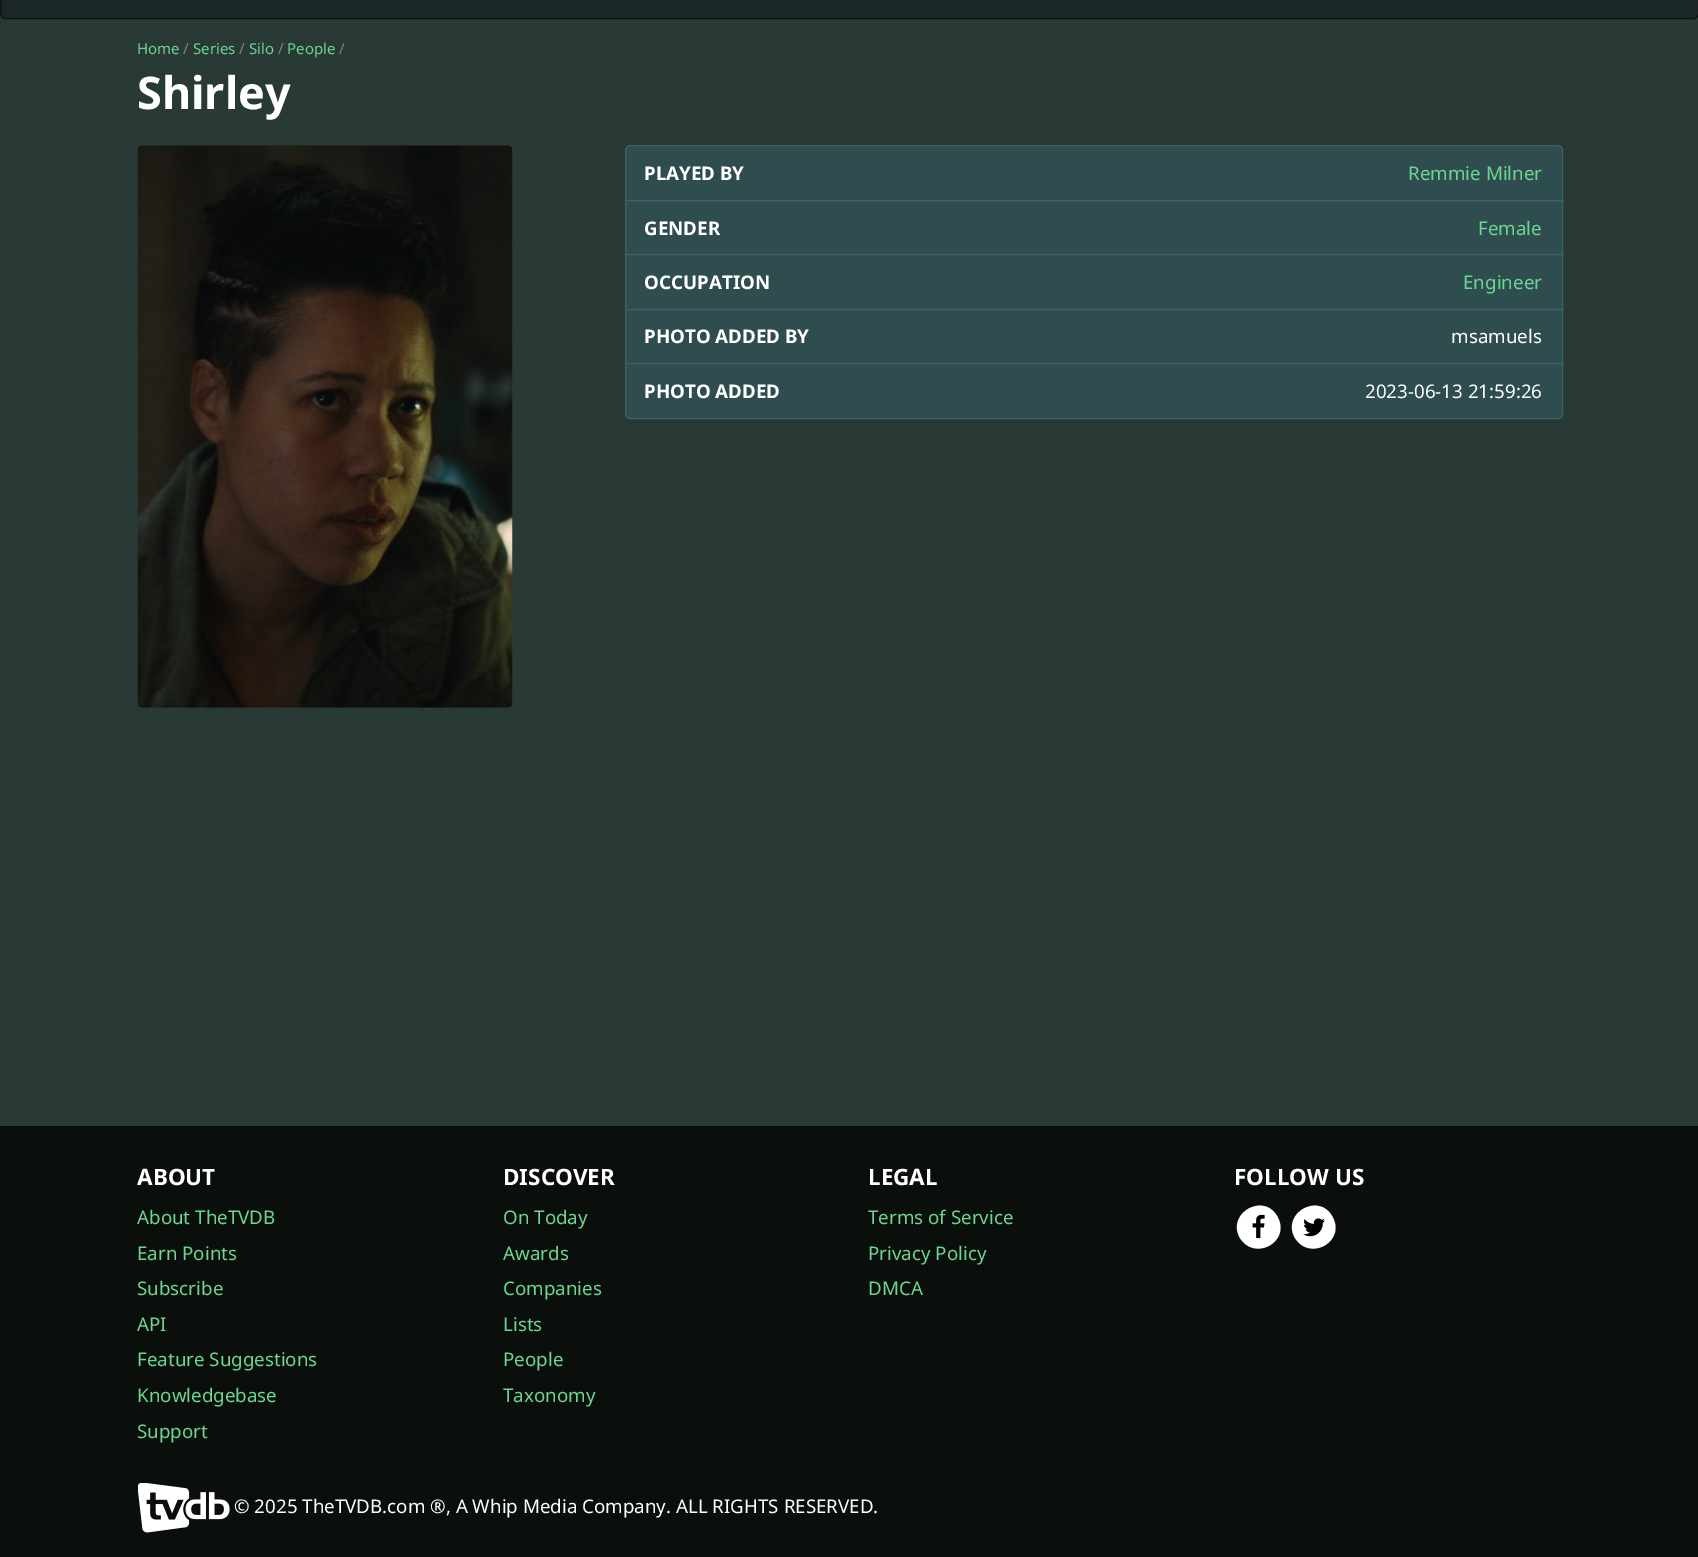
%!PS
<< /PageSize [1698 1557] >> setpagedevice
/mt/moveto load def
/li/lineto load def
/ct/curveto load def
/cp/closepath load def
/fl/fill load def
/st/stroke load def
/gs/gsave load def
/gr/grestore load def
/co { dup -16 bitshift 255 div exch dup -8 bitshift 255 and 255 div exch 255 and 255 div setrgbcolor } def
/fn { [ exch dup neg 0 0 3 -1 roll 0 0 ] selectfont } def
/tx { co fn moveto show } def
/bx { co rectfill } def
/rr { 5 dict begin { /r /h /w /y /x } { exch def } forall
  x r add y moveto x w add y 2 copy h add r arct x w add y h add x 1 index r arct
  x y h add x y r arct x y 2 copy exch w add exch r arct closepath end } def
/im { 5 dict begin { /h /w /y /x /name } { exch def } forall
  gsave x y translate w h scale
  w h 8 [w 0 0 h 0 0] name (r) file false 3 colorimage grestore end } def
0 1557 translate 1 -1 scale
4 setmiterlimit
0 0 1698 1557 16#293A36 bx
16#1B2626 co
.5 -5.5 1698 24 4.5 rr gs fl gr
16#0D1313 co
st
(media/1.raw) 137 145 376 563 im
16#2F4D4F co
630 145.5 mt 1558 145.5 li 1560.5 145.5 1562.5 147.5 1562.5 150 ct 1562.5 200.5 li 625.5 200.5 li 625.5 150 li 625.5 147.5 627.5 145.5 630 145.5 ct cp gs fl gr
16#3C6365 co
st
16#2F4D4F co
625.5 200.5 mt 1562.5 200.5 li 1562.5 254.5 li 625.5 254.5 li cp gs fl gr
16#3C6365 co
st
16#2F4D4F co
625.5 254.5 mt 1562.5 254.5 li 1562.5 309.5 li 625.5 309.5 li cp gs fl gr
16#3C6365 co
st
16#2F4D4F co
625.5 309.5 mt 1562.5 309.5 li 1562.5 363.5 li 625.5 363.5 li cp gs fl gr
16#3C6365 co
st
16#2F4D4F co
625.5 363.5 mt 1562.5 363.5 li 1562.5 414 li 1562.5 416.5 1560.5 418.5 1558 418.5 ct 630 418.5 li 627.5 418.5 625.5 416.5 625.5 414 ct cp gs fl gr
16#3C6365 co
st
0 1126 1698 431 16#0B0F0C bx
16#FFFFFF co
1277 1216 mt 1292 1241 1255 1262 1240 1238 ct 1226 1214 1263 1192 1277 1216 ct cp fl
(media/2.raw) 1252 1214 13 25 im
1332 1216 mt 1347 1241 1310 1262 1295 1238 ct 1281 1214 1318 1192 1332 1216 ct cp fl
(media/3.raw) 1303 1218 22 19 im
(media/4.raw) 138 1483 92 50 im
(Home) 137 54 /NotoSans-Regular 15 16#6CD591 tx
(/) 183 54 /NotoSans-Regular 15 16#828181 tx
(Series) 193 54 /NotoSans-Regular 15 16#6CD591 tx
(/) 239 54 /NotoSans-Regular 15 16#828181 tx
(Silo) 249 54 /NotoSans-Regular 15 16#6CD591 tx
(/) 278 54 /NotoSans-Regular 15 16#828181 tx
(People) 287 54 /NotoSans-Regular 15 16#6CD591 tx
(/) 339 54 /NotoSans-Regular 15 16#828181 tx
(Shirley) 137 109 /NotoSans-Bold 45 16#FFFFFF tx
(PLAYED BY) 644 180 /NotoSans-Bold 18.75 16#FFFFFF tx
(Remmie Milner) 1408 180 /NotoSans-Regular 18.75 16#6CD591 tx
(GENDER) 644 235 /NotoSans-Bold 18.75 16#FFFFFF tx
(Female) 1478 235 /NotoSans-Regular 18.75 16#6CD591 tx
(OCCUPATION) 644 289 /NotoSans-Bold 18.75 16#FFFFFF tx
(Engineer) 1463 289 /NotoSans-Regular 18.75 16#6CD591 tx
(PHOTO ADDED BY) 644 343 /NotoSans-Bold 18.75 16#FFFFFF tx
(msamuels) 1451 343 /NotoSans-Regular 18.75 16#FFFFFF tx
(PHOTO ADDED) 644 398 /NotoSans-Bold 18.75 16#FFFFFF tx
(2023-06-13 21:59:26) 1365 398 /NotoSans-Regular 18.75 16#FFFFFF tx
(ABOUT) 137 1185 /NotoSans-Bold 22.5 16#FFFFFF tx
(About TheTVDB) 137 1224 /NotoSans-Regular 18.75 16#6CD591 tx
(Earn Points) 137 1260 /NotoSans-Regular 18.75 16#6CD591 tx
(Subscribe) 137 1295 /NotoSans-Regular 18.75 16#6CD591 tx
(API) 137 1331 /NotoSans-Regular 18.75 16#6CD591 tx
(Feature Suggestions) 137 1366 /NotoSans-Regular 18.75 16#6CD591 tx
(Knowledgebase) 137 1402 /NotoSans-Regular 18.75 16#6CD591 tx
(Support) 137 1438 /NotoSans-Regular 18.75 16#6CD591 tx
(DISCOVER) 503 1185 /NotoSans-Bold 22.5 16#FFFFFF tx
(On Today) 503 1224 /NotoSans-Regular 18.75 16#6CD591 tx
(Awards) 503 1260 /NotoSans-Regular 18.75 16#6CD591 tx
(Companies) 503 1295 /NotoSans-Regular 18.75 16#6CD591 tx
(Lists) 503 1331 /NotoSans-Regular 18.75 16#6CD591 tx
(People) 503 1366 /NotoSans-Regular 18.75 16#6CD591 tx
(Taxonomy) 503 1402 /NotoSans-Regular 18.75 16#6CD591 tx
(LEGAL) 868 1185 /NotoSans-Bold 22.5 16#FFFFFF tx
(Terms of Service) 868 1224 /NotoSans-Regular 18.75 16#6CD591 tx
(Privacy Policy) 868 1260 /NotoSans-Regular 18.75 16#6CD591 tx
(DMCA) 868 1295 /NotoSans-Regular 18.75 16#6CD591 tx
(FOLLOW US) 1234 1185 /NotoSans-Bold 22.5 16#FFFFFF tx
(© 2025 TheTVDB.com ®, A Whip Media Company. ALL RIGHTS RESERVED.) 234 1513 /NotoSans-Regular 18.75 16#FFFFFF tx
showpage
